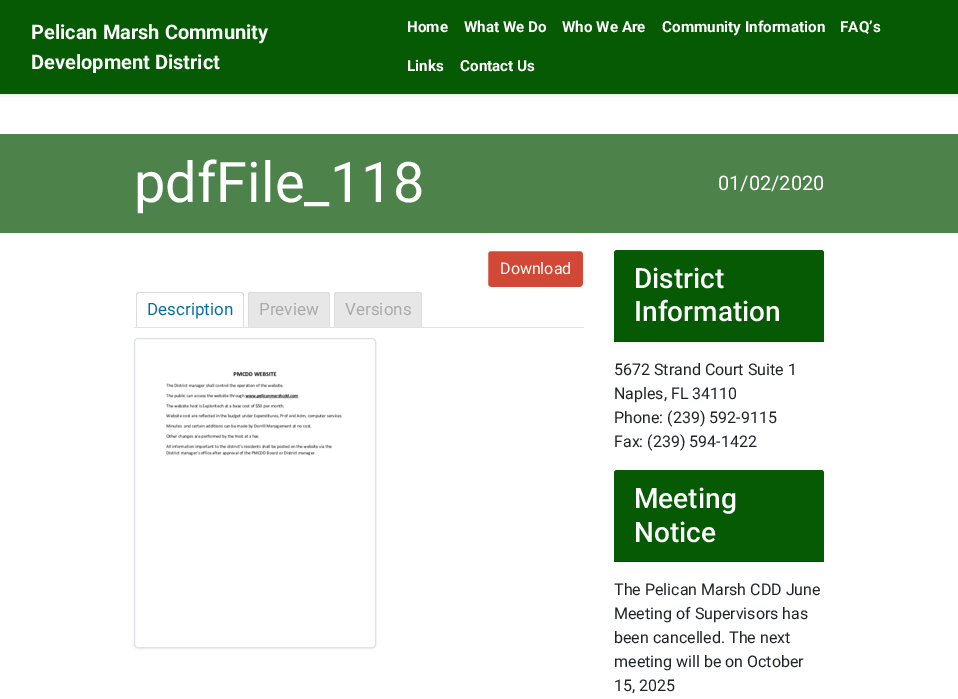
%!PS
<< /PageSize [958 699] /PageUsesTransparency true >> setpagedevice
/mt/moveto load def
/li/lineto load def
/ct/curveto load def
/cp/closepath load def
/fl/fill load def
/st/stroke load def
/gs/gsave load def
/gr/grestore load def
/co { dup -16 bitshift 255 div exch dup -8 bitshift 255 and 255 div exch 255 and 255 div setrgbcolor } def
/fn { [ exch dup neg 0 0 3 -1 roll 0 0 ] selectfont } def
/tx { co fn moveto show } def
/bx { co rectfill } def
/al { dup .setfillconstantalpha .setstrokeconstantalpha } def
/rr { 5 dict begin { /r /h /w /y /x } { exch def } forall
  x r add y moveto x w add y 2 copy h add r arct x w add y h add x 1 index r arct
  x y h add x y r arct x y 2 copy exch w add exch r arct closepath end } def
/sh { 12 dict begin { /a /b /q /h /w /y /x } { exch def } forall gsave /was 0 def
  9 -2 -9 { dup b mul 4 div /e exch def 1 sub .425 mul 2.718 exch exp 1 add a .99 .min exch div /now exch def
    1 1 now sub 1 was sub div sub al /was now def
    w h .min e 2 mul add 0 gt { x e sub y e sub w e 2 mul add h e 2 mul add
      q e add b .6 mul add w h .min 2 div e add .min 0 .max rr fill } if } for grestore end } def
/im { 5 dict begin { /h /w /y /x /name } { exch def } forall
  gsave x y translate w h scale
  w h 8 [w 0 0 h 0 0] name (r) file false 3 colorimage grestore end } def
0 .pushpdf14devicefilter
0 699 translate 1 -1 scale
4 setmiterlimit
0 0 958 699 16#FFFFFF bx
16#000000 co
0 2 958 94 0 2 .07 sh
0 0 958 94 16#065A04 bx
0 134 958 99 16#4D824B bx
0 233 958 1 16#EEEEEE bx
16#D14836 co
487.5 250.5 96 37 3.5 rr gs fl gr
16#FFFFFF co
st
16#DCDCDC co
139 292 mt 241 292 li 243 292 244 293 244 295 ct 244 327 li 136 327 li 136 295 li 136 293 137 292 139 292 ct cp 139 293 mt 241 293 li 242 293 243 294 243 295 ct 243 327 li 137 327 li 137 295 li 137 294 138 293 139 293 ct cp eofill
16#E7E7E7 co
251 292 mt 327 292 li 328.5 292 330 293.5 330 295 ct 330 327 li 248 327 li 248 295 li 248 293.5 249.5 292 251 292 ct cp fl
16#DCDCDC co
251 292 mt 327 292 li 329 292 330 293 330 295 ct 330 327 li 248 327 li 248 295 li 248 293 249 292 251 292 ct cp 251 293 mt 327 293 li 328 293 329 294 329 295 ct 329 327 li 249 327 li 249 295 li 249 294 250 293 251 293 ct cp eofill
16#E7E7E7 co
337 292 mt 419 292 li 420.5 292 422 293.5 422 295 ct 422 327 li 334 327 li 334 295 li 334 293.5 335.5 292 337 292 ct cp fl
16#DCDCDC co
337 292 mt 419 292 li 421 292 422 293 422 295 ct 422 327 li 334 327 li 334 295 li 334 293 335 292 337 292 ct cp 337 293 mt 419 293 li 420 293 421 294 421 295 ct 421 327 li 335 327 li 335 295 li 335 294 336 293 337 293 ct cp eofill
134 327 450 1 16#E2E2E2 bx
16#000000 co
134 339 242 310 4 1 .07 sh
16#FFFFFF co
134.5 338.5 241 309 3.5 rr gs fl gr
16#DEE2E6 co
st
(media/1.raw) 166 371 176 85 im
16#065A04 co
617 250 mt 821 250 li 822.5 250 824 251.5 824 253 ct 824 342 li 614 342 li 614 253 li 614 251.5 615.5 250 617 250 ct cp fl
614 341 210 1 16#054F04 bx
16#065A04 co
617 470 mt 821 470 li 822.5 470 824 471.5 824 473 ct 824 562 li 614 562 li 614 473 li 614 471.5 615.5 470 617 470 ct cp fl
614 561 210 1 16#054F04 bx
(Pelican Marsh Community) 31 39 /Roboto-Bold 20 16#FFFFFF tx
(Development District) 31 69 /Roboto-Bold 20 16#FFFFFF tx
(Home) 407 32 /Roboto-Bold 15.25 16#FFFFFF tx
(What We Do) 464 32 /Roboto-Bold 15.25 16#FFFFFF tx
(Who We Are) 562 32 /Roboto-Bold 15.25 16#FFFFFF tx
(Community Information) 662 32 /Roboto-Bold 15.25 16#FFFFFF tx
(FAQ’s) 840 32 /Roboto-Bold 15.25 16#FFFFFF tx
(Links) 407 71 /Roboto-Bold 15.25 16#FFFFFF tx
(Contact Us) 460 71 /Roboto-Bold 15.25 16#FFFFFF tx
(pdfFile_118) 134 202 /Roboto-Regular 56 16#FFFFFF tx
(01/02/2020) 718 190 /Roboto-Regular 20 16#FFFFFF tx
(Download) 500 274 /Roboto-Regular 16 16#FFFFFF tx
(Description) 147 315 /Roboto-Regular 17 16#086FA1 tx
(Preview) 259 315 /Roboto-Regular 17 16#AAAAAA tx
(Versions) 345 315 /Roboto-Regular 17 16#AAAAAA tx
(District) 634 288 /Roboto-Medium 28 16#FFFFFF tx
(Information) 634 321 /Roboto-Medium 28 16#FFFFFF tx
(5672 Strand Court Suite 1) 614 375 /Roboto-Regular 16 16#212529 tx
(Naples, FL 34110) 614 399 /Roboto-Regular 16 16#212529 tx
(Phone: \(239\) 592-9115) 614 423 /Roboto-Regular 16 16#212529 tx
(Fax: \(239\) 594-1422) 614 447 /Roboto-Regular 16 16#212529 tx
(Meeting) 634 508 /Roboto-Medium 28 16#FFFFFF tx
(Notice) 634 542 /Roboto-Medium 28 16#FFFFFF tx
(The Pelican Marsh CDD June) 614 595 /Roboto-Regular 16 16#212529 tx
(Meeting of Supervisors has) 614 619 /Roboto-Regular 16 16#212529 tx
(been cancelled. The next) 614 643 /Roboto-Regular 16 16#212529 tx
(meeting will be on October) 614 667 /Roboto-Regular 16 16#212529 tx
(15, 2025) 614 691 /Roboto-Regular 16 16#212529 tx
.poppdf14devicefilter showpage
